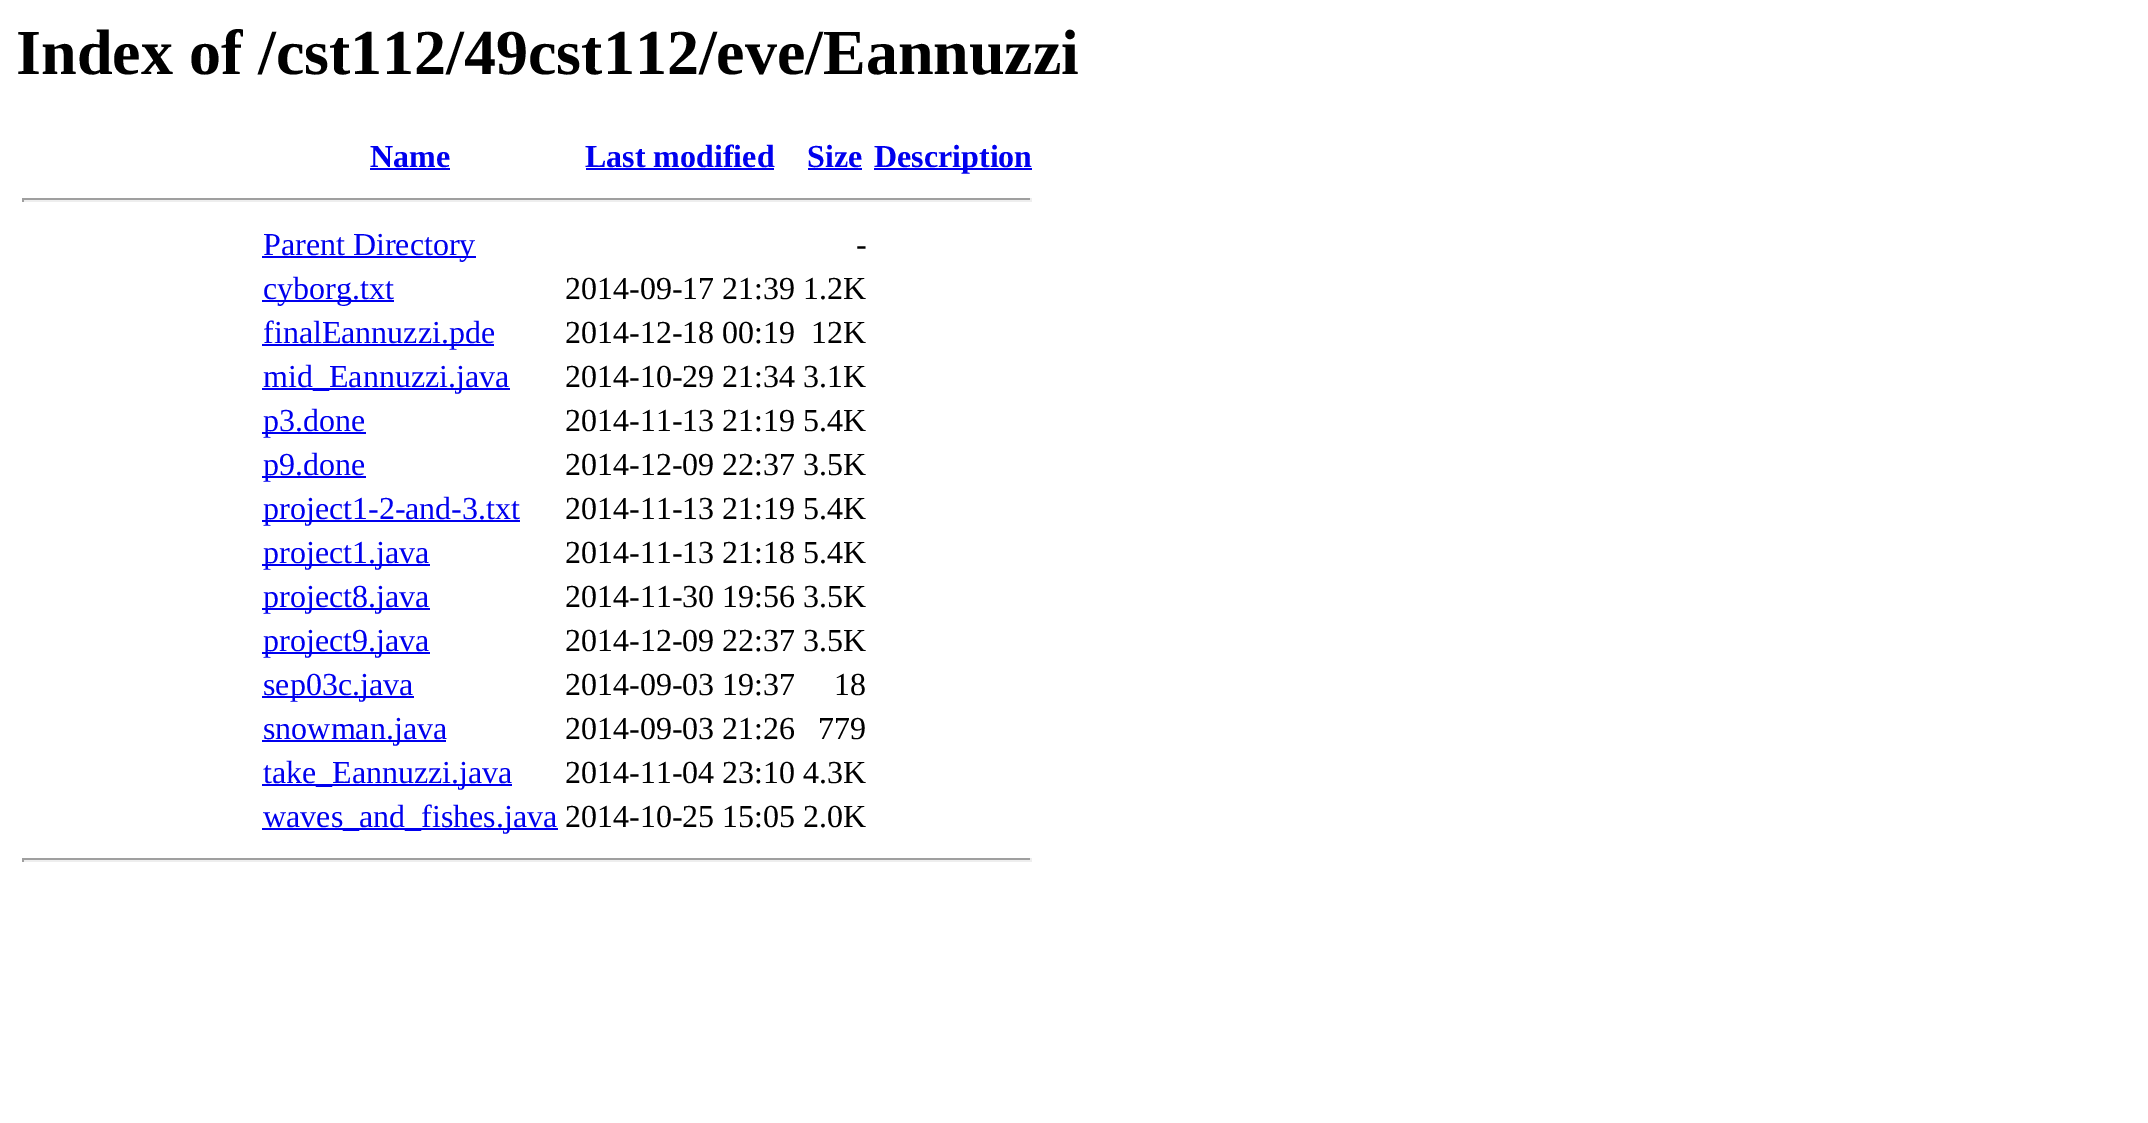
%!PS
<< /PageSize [2148 1123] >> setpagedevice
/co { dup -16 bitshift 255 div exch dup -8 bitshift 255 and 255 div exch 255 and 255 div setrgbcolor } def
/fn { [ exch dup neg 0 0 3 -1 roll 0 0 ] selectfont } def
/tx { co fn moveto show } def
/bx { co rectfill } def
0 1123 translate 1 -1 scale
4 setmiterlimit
0 0 2148 1123 16#FFFFFF bx
370 168 80 2 16#0000EE bx
586 168 188 2 16#0000EE bx
808 168 54 2 16#0000EE bx
874 168 158 2 16#0000EE bx
22 198 1010 2 16#9F9F9F bx
1030 198 2 4 16#EEEEEE bx
22 200 1010 2 16#EEEEEE bx
22 198 2 4 16#9F9F9F bx
262 256 214 2 16#0000EE bx
262 300 132 2 16#0000EE bx
262 344 232 2 16#0000EE bx
262 388 248 2 16#0000EE bx
262 432 104 2 16#0000EE bx
262 476 104 2 16#0000EE bx
262 520 258 2 16#0000EE bx
262 564 168 2 16#0000EE bx
262 608 168 2 16#0000EE bx
262 652 168 2 16#0000EE bx
262 696 152 2 16#0000EE bx
262 740 184 2 16#0000EE bx
262 784 250 2 16#0000EE bx
262 828 296 2 16#0000EE bx
22 858 1010 2 16#9F9F9F bx
1030 858 2 4 16#EEEEEE bx
22 860 1010 2 16#EEEEEE bx
22 858 2 4 16#9F9F9F bx
(Index of /cst112/49cst112/eve/Eannuzzi) 16 74 /LiberationSerif-Bold 64 16#000000 tx
(Name) 370 167 /LiberationSerif-Bold 32 16#0000EE tx
(Last modified) 585 167 /LiberationSerif-Bold 32 16#0000EE tx
(Size) 807 167 /LiberationSerif-Bold 32 16#0000EE tx
(Description) 874 167 /LiberationSerif-Bold 32 16#0000EE tx
(Parent Directory) 263 255 /LiberationSerif-Regular 32 16#0000EE tx
(-) 856 255 /LiberationSerif-Regular 32 16#000000 tx
(cyborg.txt) 263 299 /LiberationSerif-Regular 32 16#0000EE tx
(2014-09-17 21:39 1.2K) 565 299 /LiberationSerif-Regular 32 16#000000 tx
(finalEannuzzi.pde) 263 343 /LiberationSerif-Regular 32 16#0000EE tx
(2014-12-18 00:19) 565 343 /LiberationSerif-Regular 32 16#000000 tx
(12K) 811 343 /LiberationSerif-Regular 32 16#000000 tx
(mid_Eannuzzi.java) 263 387 /LiberationSerif-Regular 32 16#0000EE tx
(2014-10-29 21:34 3.1K) 565 387 /LiberationSerif-Regular 32 16#000000 tx
(p3.done) 263 431 /LiberationSerif-Regular 32 16#0000EE tx
(2014-11-13 21:19 5.4K) 565 431 /LiberationSerif-Regular 32 16#000000 tx
(p9.done) 263 475 /LiberationSerif-Regular 32 16#0000EE tx
(2014-12-09 22:37 3.5K) 565 475 /LiberationSerif-Regular 32 16#000000 tx
(project1-2-and-3.txt) 263 519 /LiberationSerif-Regular 32 16#0000EE tx
(2014-11-13 21:19 5.4K) 565 519 /LiberationSerif-Regular 32 16#000000 tx
(project1.java) 263 563 /LiberationSerif-Regular 32 16#0000EE tx
(2014-11-13 21:18 5.4K) 565 563 /LiberationSerif-Regular 32 16#000000 tx
(project8.java) 263 607 /LiberationSerif-Regular 32 16#0000EE tx
(2014-11-30 19:56 3.5K) 565 607 /LiberationSerif-Regular 32 16#000000 tx
(project9.java) 263 651 /LiberationSerif-Regular 32 16#0000EE tx
(2014-12-09 22:37 3.5K) 565 651 /LiberationSerif-Regular 32 16#000000 tx
(sep03c.java) 263 695 /LiberationSerif-Regular 32 16#0000EE tx
(2014-09-03 19:37) 565 695 /LiberationSerif-Regular 32 16#000000 tx
(18) 834 695 /LiberationSerif-Regular 32 16#000000 tx
(snowman.java) 263 739 /LiberationSerif-Regular 32 16#0000EE tx
(2014-09-03 21:26) 565 739 /LiberationSerif-Regular 32 16#000000 tx
(779) 818 739 /LiberationSerif-Regular 32 16#000000 tx
(take_Eannuzzi.java) 263 783 /LiberationSerif-Regular 32 16#0000EE tx
(2014-11-04 23:10 4.3K) 565 783 /LiberationSerif-Regular 32 16#000000 tx
(waves_and_fishes.java) 263 827 /LiberationSerif-Regular 32 16#0000EE tx
(2014-10-25 15:05 2.0K) 565 827 /LiberationSerif-Regular 32 16#000000 tx
showpage
